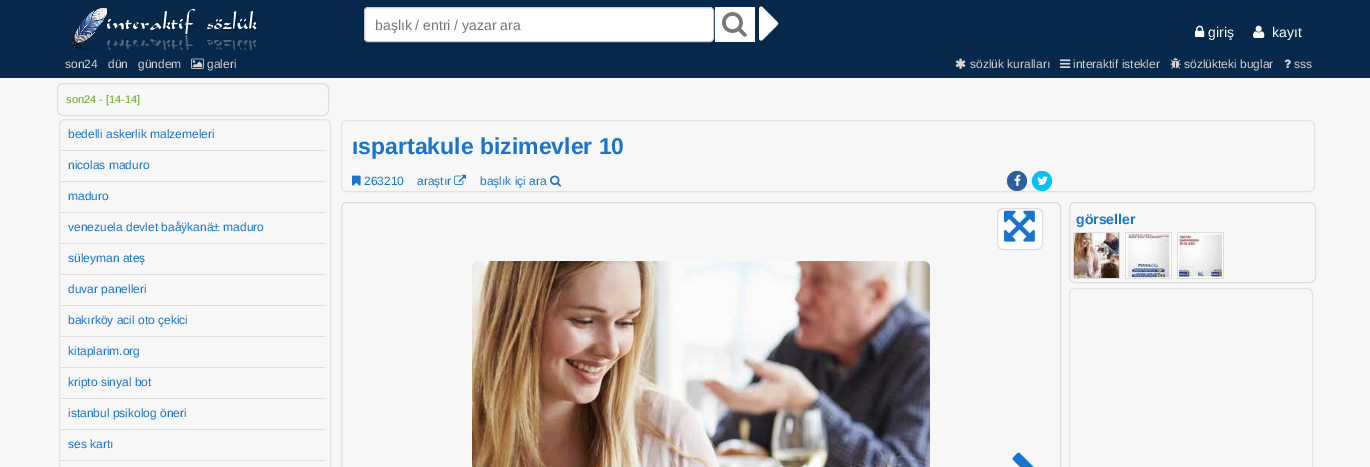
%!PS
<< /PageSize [1370 467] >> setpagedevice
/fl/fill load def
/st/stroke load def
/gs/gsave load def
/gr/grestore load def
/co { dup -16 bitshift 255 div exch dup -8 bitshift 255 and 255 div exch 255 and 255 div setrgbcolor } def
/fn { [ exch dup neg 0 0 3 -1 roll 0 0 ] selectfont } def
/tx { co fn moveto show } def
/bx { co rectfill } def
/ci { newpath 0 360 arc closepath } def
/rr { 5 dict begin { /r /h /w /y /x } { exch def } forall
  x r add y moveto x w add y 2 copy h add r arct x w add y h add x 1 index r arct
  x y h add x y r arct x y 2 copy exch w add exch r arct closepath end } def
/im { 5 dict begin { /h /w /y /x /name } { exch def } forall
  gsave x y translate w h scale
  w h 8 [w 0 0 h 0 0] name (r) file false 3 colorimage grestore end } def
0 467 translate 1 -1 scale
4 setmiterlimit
0 0 1370 467 16#F7F7F7 bx
0 0 1370 78 16#06284A bx
(media/1.raw) 72 8 186 42 im
16#FFFFFF co
364.5 7.5 349 34 3.5 rr gs fl gr
16#CCCCCC co
st
715 7 40 35 16#FFFFFF bx
(media/2.raw) 722 12 25 25 im
(media/3.raw) 759 6 20 35 im
(media/4.raw) 1195 25 10 12 im
(media/5.raw) 1253 25 12 13 im
(media/6.raw) 191 58 13 11 im
(media/7.raw) 955 58 11 11 im
(media/8.raw) 1060 59 11 9 im
(media/9.raw) 1170 58 11 11 im
(media/10.raw) 1284 59 7 9 im
16#DDDDDD co
57.5 83.5 271 32 5.5 rr st
16#E2E2E2 co
59.5 119.5 271 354 5.5 rr st
60 150 265 1 16#DDDDDD bx
60 181 265 1 16#DDDDDD bx
60 212 265 1 16#DDDDDD bx
60 243 265 1 16#DDDDDD bx
60 274 265 1 16#DDDDDD bx
60 305 265 1 16#DDDDDD bx
60 336 265 1 16#DDDDDD bx
60 367 265 1 16#DDDDDD bx
60 398 265 1 16#DDDDDD bx
60 429 265 1 16#DDDDDD bx
60 460 265 1 16#DDDDDD bx
16#E2E2E2 co
341.5 120.5 973 71 5.5 rr st
(media/11.raw) 352 175 9 11 im
(media/12.raw) 454 174 12 11 im
(media/13.raw) 550 175 12 12 im
16#2D609B co
1017 181 10 ci fl
(media/14.raw) 1014 174 7 12 im
16#00C3F3 co
1042 181 10 ci fl
(media/15.raw) 1037 176 11 9 im
16#DDDDDD co
341.5 202.5 719 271 5.5 rr st
16#FFFFFF co
997.5 208.5 45 41 5.5 rr gs fl gr
16#DDDDDD co
st
(media/16.raw) 1004 210 31 32 im
(media/17.raw) 472 261 458 206 im
(media/18.raw) 1012 452 22 15 im
1069.5 202.5 246 80 5.5 rr st
1073 232 47 47 16#DDDDDD bx
(media/19.raw) 1074 233 45 45 im
1125 232 47 47 16#DDDDDD bx
(media/20.raw) 1126 233 45 45 im
1177 232 47 47 16#DDDDDD bx
(media/21.raw) 1178 233 45 45 im
16#E2E2E2 co
1069.5 288.5 243 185 5.5 rr st
(başlık / entri / yazar ara) 375 30 /LiberationSans-Regular 14 16#757575 tx
(giriş) 1208 37 /LiberationSans-Regular 14 16#FFFFFF tx
(kayıt) 1272 37 /LiberationSans-Regular 14 16#FFFFFF tx
(son24) 65 68 /LiberationSans-Regular 12 16#D4D4D4 tx
(dün) 108 68 /LiberationSans-Regular 12 16#D4D4D4 tx
(gündem) 138 68 /LiberationSans-Regular 12 16#D4D4D4 tx
(galeri) 207 68 /LiberationSans-Regular 12 16#D4D4D4 tx
(sözlük kuralları) 970 68 /LiberationSans-Regular 12 16#D4D4D4 tx
(interaktif istekler) 1073 68 /LiberationSans-Regular 12 16#D4D4D4 tx
(sözlükteki buglar) 1184 68 /LiberationSans-Regular 12 16#D4D4D4 tx
(sss) 1294 68 /LiberationSans-Regular 12 16#D4D4D4 tx
(son24 - [14-14]) 66 103 /LiberationSans-Regular 11 16#65A51C tx
(bedelli askerlik malzemeleri) 68 138 /LiberationSans-Regular 12 16#1874CD tx
(nicolas maduro) 68 169 /LiberationSans-Regular 12 16#1874CD tx
(maduro) 68 200 /LiberationSans-Regular 12 16#1874CD tx
(venezuela devlet baåÿkanä± maduro) 68 231 /LiberationSans-Regular 12 16#1874CD tx
(süleyman ateş) 68 262 /LiberationSans-Regular 12 16#1874CD tx
(duvar panelleri) 68 293 /LiberationSans-Regular 12 16#1874CD tx
(bakırköy acil oto çekici) 68 324 /LiberationSans-Regular 12 16#1874CD tx
(kitaplarim.org) 68 355 /LiberationSans-Regular 12 16#1874CD tx
(kripto sinyal bot) 68 386 /LiberationSans-Regular 12 16#1874CD tx
(istanbul psikolog öneri) 68 417 /LiberationSans-Regular 12 16#1874CD tx
(ses kartı) 68 448 /LiberationSans-Regular 12 16#1874CD tx
(ıspartakule bizimevler 10) 352 154 /LiberationSans-Bold 23 16#1874CD tx
(263210) 364 185 /LiberationSans-Regular 12 16#1874CD tx
(araştır) 417 185 /LiberationSans-Regular 12 16#1874CD tx
(başlık içi ara) 480 185 /LiberationSans-Regular 12 16#1874CD tx
(görseller) 1076 224 /LiberationSans-Bold 14 16#1874CD tx
showpage
